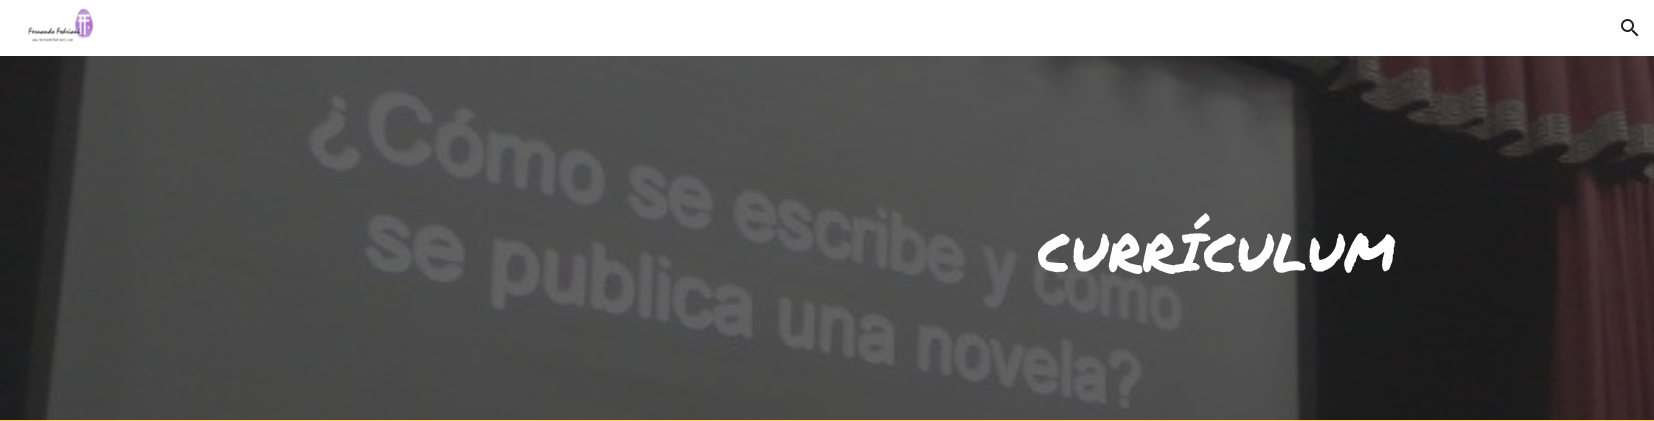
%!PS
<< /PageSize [1654 421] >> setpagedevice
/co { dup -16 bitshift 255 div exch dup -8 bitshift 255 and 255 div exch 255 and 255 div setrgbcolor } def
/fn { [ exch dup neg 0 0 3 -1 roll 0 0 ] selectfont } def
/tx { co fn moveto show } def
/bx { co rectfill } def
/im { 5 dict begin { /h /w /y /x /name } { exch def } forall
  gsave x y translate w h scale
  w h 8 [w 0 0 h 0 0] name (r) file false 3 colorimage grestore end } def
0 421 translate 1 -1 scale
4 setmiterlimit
0 0 1654 421 16#FFFFFF bx
(media/1.raw) 28 8 66 34 im
(media/2.raw) 1621 19 18 18 im
(media/3.raw) 0 56 1654 364 im
0 420 1654 1 16#FFD54F bx
(CURRÍCULUM) 1038 272 /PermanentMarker-Regular 53.25 16#FFFFFF tx
showpage
